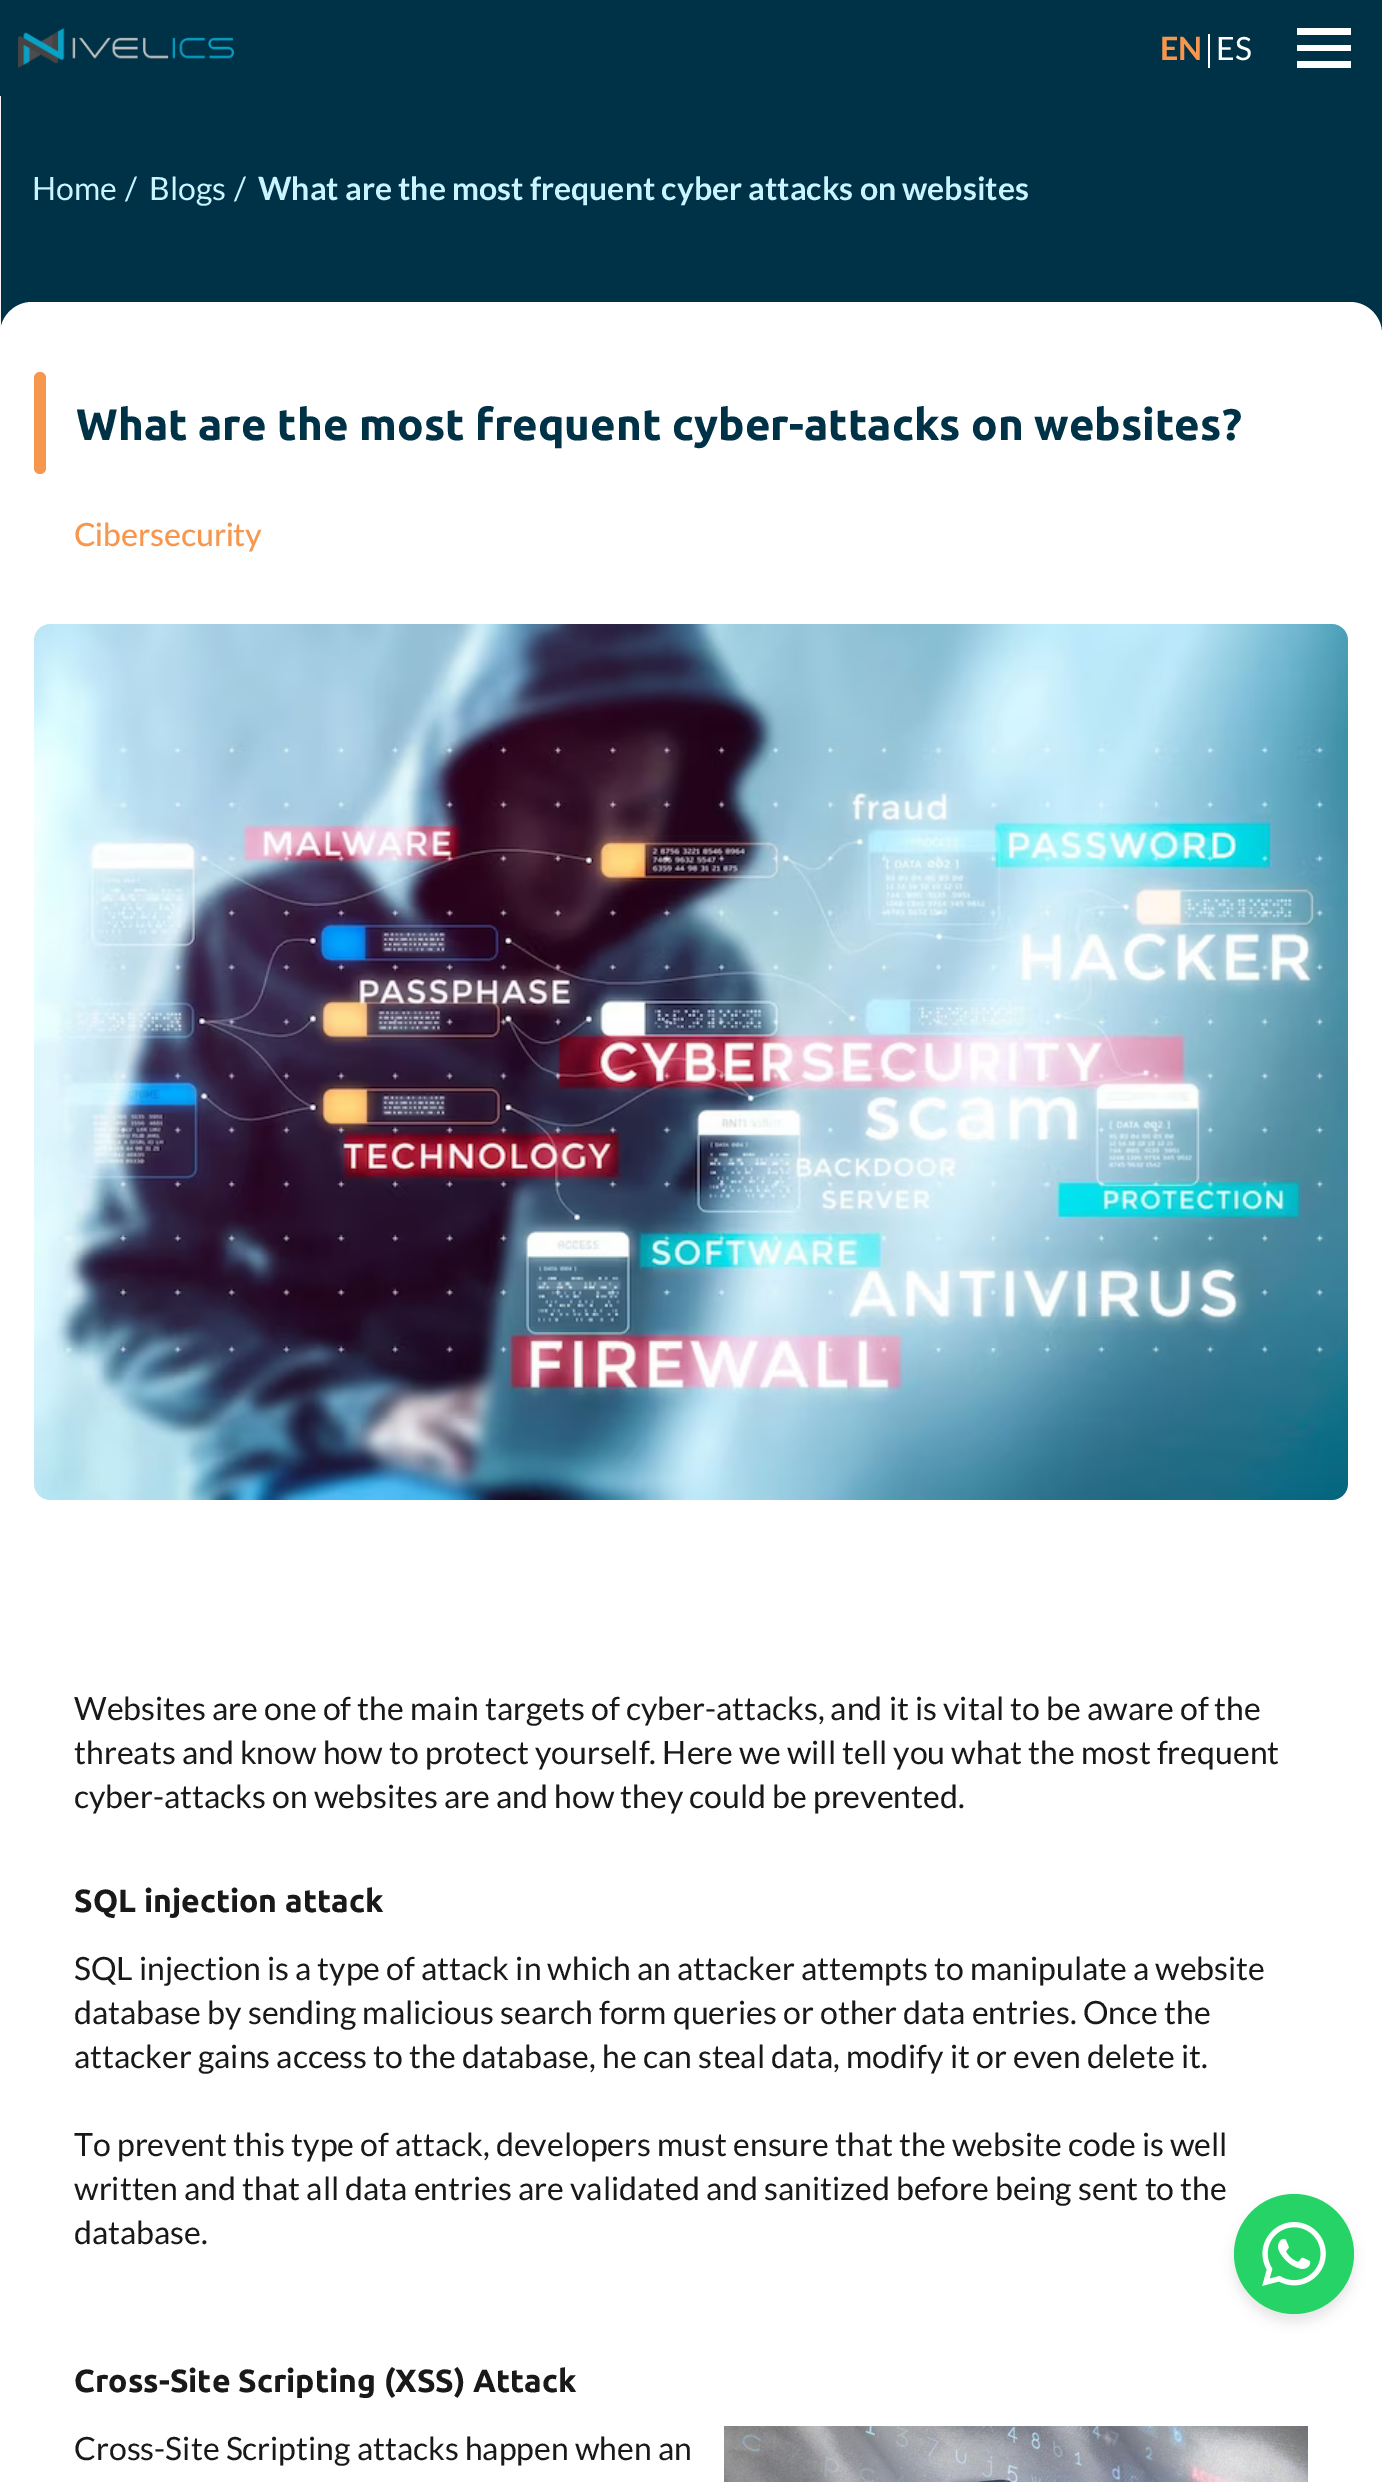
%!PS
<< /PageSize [1382 2482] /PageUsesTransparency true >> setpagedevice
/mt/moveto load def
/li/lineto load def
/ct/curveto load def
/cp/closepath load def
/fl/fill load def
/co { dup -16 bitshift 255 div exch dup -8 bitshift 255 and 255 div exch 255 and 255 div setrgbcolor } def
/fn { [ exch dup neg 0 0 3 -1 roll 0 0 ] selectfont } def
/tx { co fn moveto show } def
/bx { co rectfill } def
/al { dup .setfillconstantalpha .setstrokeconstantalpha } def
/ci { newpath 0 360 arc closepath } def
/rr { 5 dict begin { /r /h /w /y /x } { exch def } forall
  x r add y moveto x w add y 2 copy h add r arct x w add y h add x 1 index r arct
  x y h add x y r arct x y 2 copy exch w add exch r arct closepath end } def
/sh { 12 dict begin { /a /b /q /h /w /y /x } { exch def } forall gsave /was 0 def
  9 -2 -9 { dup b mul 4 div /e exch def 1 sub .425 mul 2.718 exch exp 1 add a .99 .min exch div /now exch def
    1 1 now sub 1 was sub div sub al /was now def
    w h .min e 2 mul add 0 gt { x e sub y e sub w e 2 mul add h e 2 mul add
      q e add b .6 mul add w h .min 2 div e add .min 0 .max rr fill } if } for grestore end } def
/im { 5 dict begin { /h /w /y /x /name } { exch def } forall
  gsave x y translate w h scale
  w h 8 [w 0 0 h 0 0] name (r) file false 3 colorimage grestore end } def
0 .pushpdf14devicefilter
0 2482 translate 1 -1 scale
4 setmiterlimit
0 0 1382 2482 16#F4F4F4 bx
0 0 1382 96 16#003247 bx
(media/1.raw) 18 28 216 40 im
1208 34 2 34 16#FFFFFF bx
1297 28 mt 1351 28 li 1351 35 li 1297 35 li cp 1297 45 mt 1351 45 li 1351 51 li 1297 51 li cp 1297 61 mt 1351 61 li 1351 68 li 1297 68 li cp fl
(media/2.raw) 1 96 1381 238 im
32 302 mt 1350 302 li 1367.5 302 1382 316.5 1382 334 ct 1382 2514 li 0 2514 li 0 334 li 0 316.5 14.5 302 32 302 ct cp fl
16#F7964D co
34 372 12 102 6 rr fl
(media/3.raw) 34 624 1314 876 im
(media/4.raw) 724 2426 584 56 im
16#000000 co
1234 2202 120 120 60 6 .1 sh
16#25D366 co
1294 2254 60 ci fl
(media/5.raw) 1262 2222 64 64 im
(EN) 1160 60 /Lato-Bold 32 16#F7964D tx
(ES) 1216 60 /Lato-Regular 32 16#FFFFFF tx
(Home) 32 200 /Lato-Regular 32 16#CAF4FF tx
(/) 125 200 /Lato-Regular 32 16#CAF4FF tx
(Blogs) 149 200 /Lato-Regular 32 16#CAF4FF tx
(/) 234 200 /Lato-Regular 32 16#CAF4FF tx
(What are the most frequent cyber attacks on websites) 258 200 /Lato-Bold 32 16#CAF4FF tx
(What are the most frequent cyber-attacks on websites?) 76 440 /Ubuntu-Bold 44 16#003247 tx
(Cibersecurity) 74 546 /Lato-Medium 32 16#F7964D tx
(Websites are one of the main targets of cyber-attacks, and it is vital to be aware of the) 74 1720 /Lato-Regular 32 16#191919 tx
(threats and know how to protect yourself. Here we will tell you what the most frequent) 74 1764 /Lato-Regular 32 16#191919 tx
(cyber-attacks on websites are and how they could be prevented.) 74 1808 /Lato-Regular 32 16#191919 tx
(SQL injection attack) 74 1912 /Ubuntu-Bold 32 16#191919 tx
(SQL injection is a type of attack in which an attacker attempts to manipulate a website) 74 1980 /Lato-Regular 32 16#191919 tx
(database by sending malicious search form queries or other data entries. Once the) 74 2024 /Lato-Regular 32 16#191919 tx
(attacker gains access to the database, he can steal data, modify it or even delete it.) 74 2068 /Lato-Regular 32 16#191919 tx
(To prevent this type of attack, developers must ensure that the website code is well) 74 2156 /Lato-Regular 32 16#191919 tx
(written and that all data entries are validated and sanitized before being sent to the) 74 2200 /Lato-Regular 32 16#191919 tx
(database.) 74 2244 /Lato-Regular 32 16#191919 tx
(Cross-Site Scripting \(XSS\) Attack) 74 2392 /Ubuntu-Bold 32 16#191919 tx
(Cross-Site Scripting attacks happen when an) 74 2460 /Lato-Regular 32 16#191919 tx
.poppdf14devicefilter showpage
